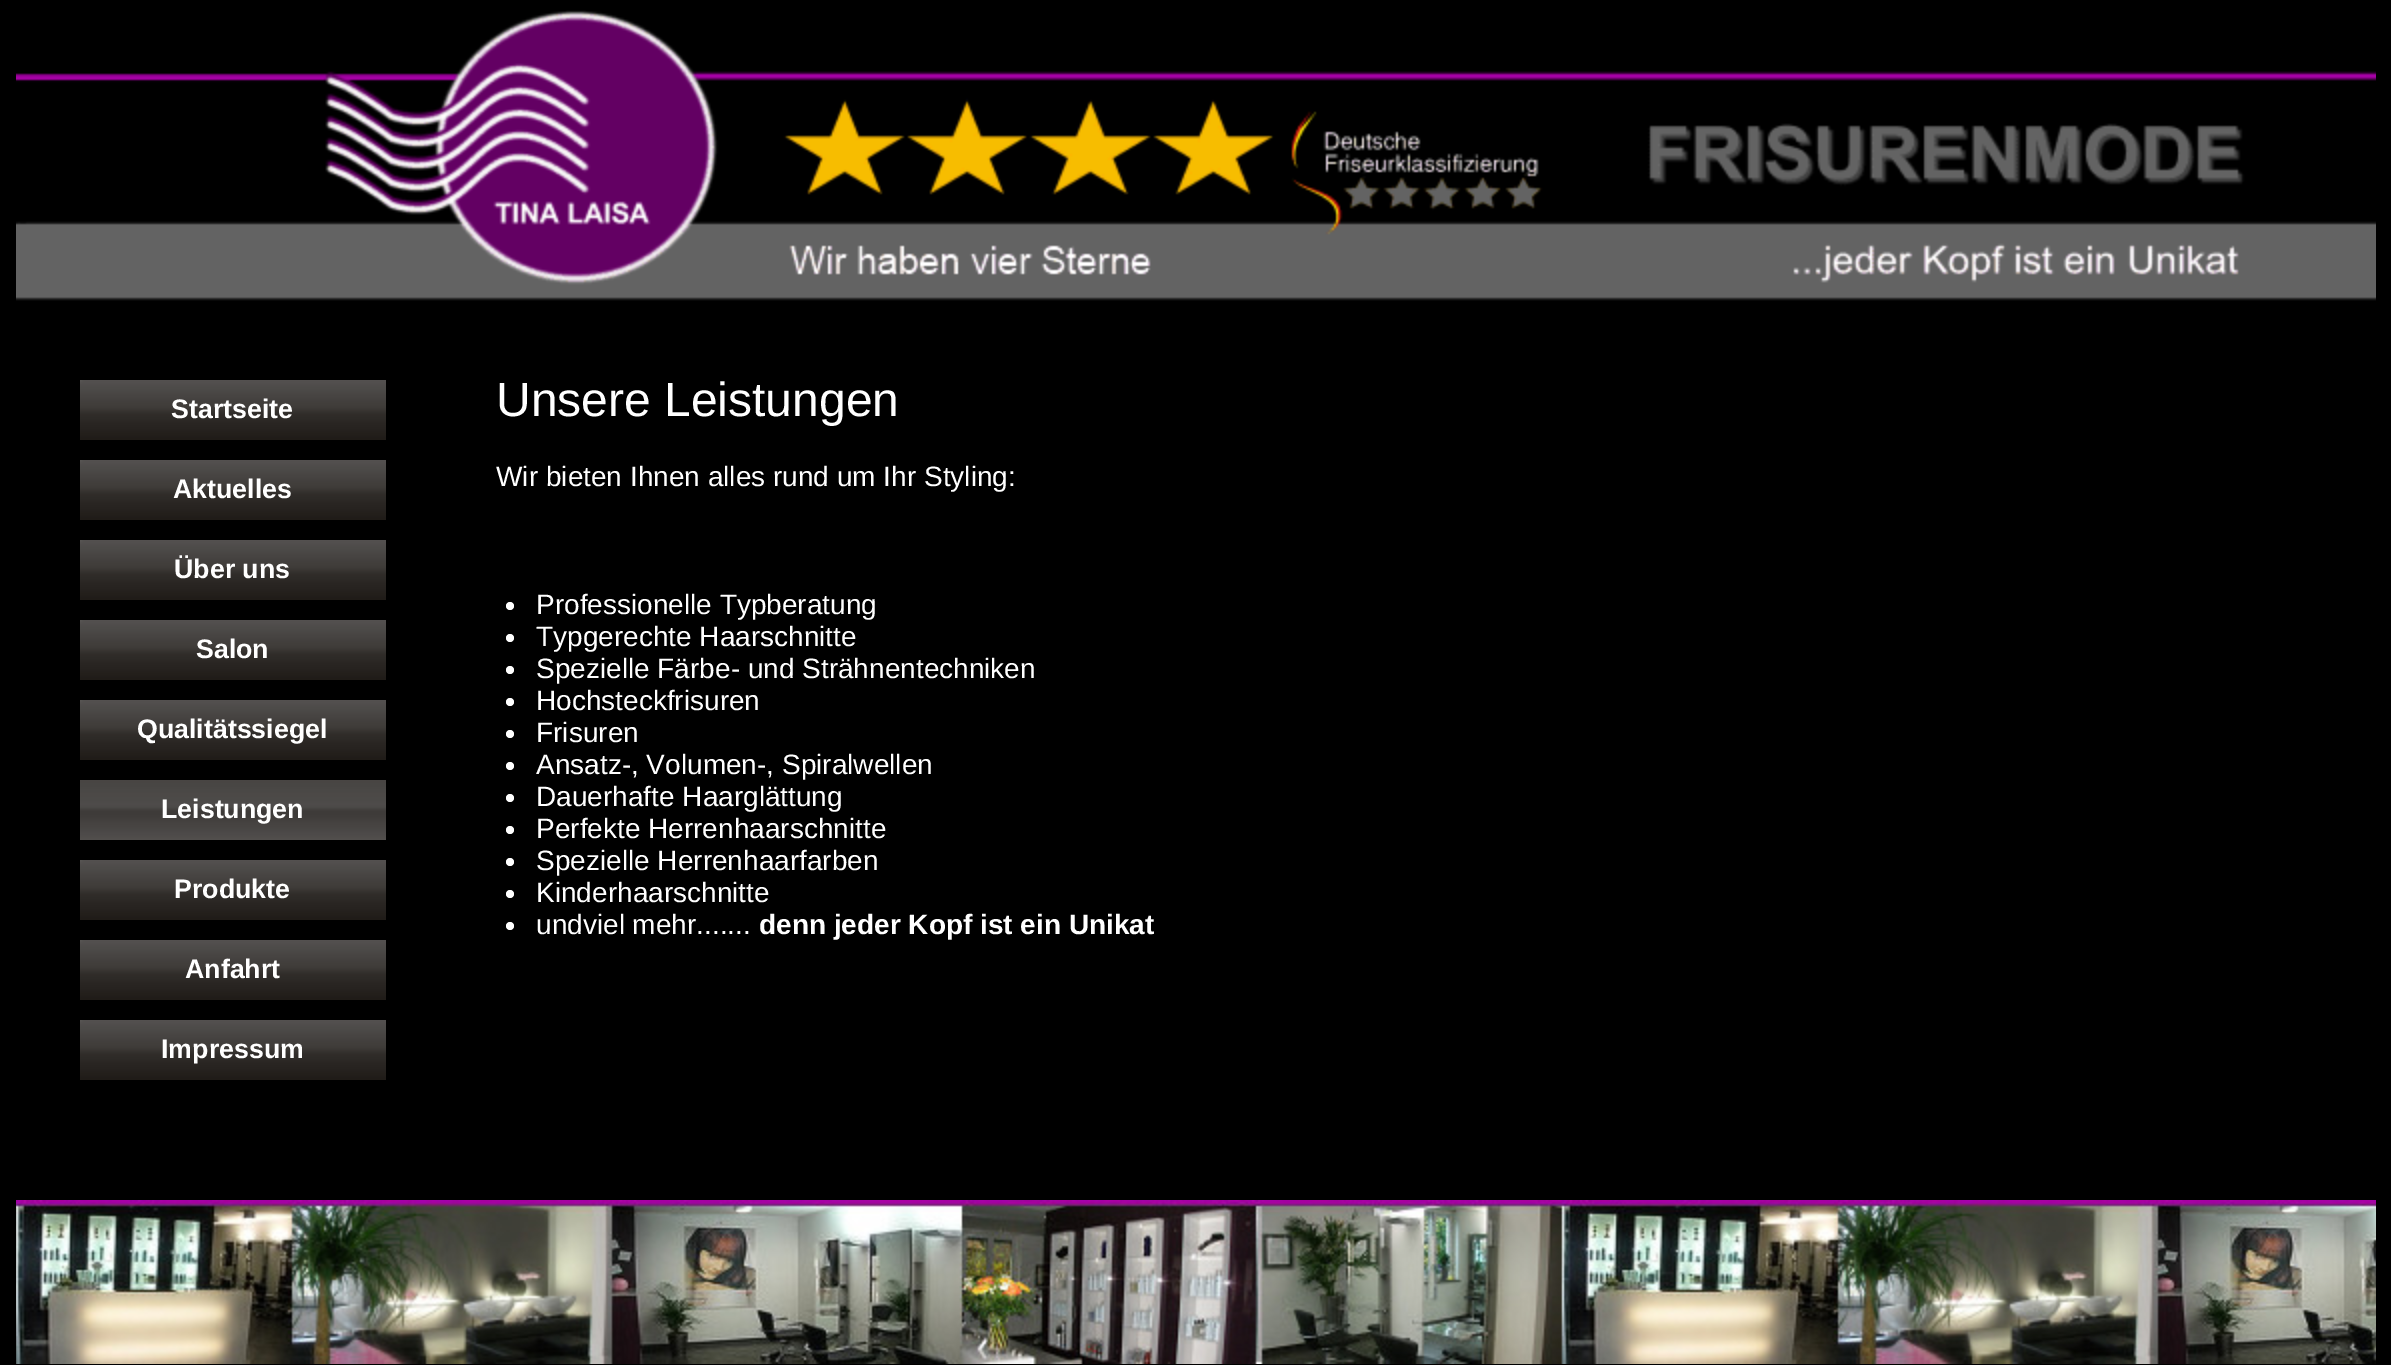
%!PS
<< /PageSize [2391 1365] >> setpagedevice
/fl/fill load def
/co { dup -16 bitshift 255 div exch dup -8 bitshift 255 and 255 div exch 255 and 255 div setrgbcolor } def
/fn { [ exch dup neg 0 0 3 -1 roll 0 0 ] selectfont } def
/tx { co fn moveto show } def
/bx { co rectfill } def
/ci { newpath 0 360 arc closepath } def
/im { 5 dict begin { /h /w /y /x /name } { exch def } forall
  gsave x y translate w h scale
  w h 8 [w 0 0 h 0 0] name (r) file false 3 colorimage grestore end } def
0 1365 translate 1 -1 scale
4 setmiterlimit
0 0 2391 1365 16#000000 bx
(media/1.raw) 16 10 2360 291 im
(media/2.raw) 80 380 306 60 im
(media/2.raw) 80 460 306 60 im
(media/2.raw) 80 540 306 60 im
(media/2.raw) 80 620 306 60 im
(media/2.raw) 80 700 306 60 im
(media/3.raw) 80 780 306 60 im
(media/2.raw) 80 860 306 60 im
(media/2.raw) 80 940 306 60 im
(media/2.raw) 80 1020 306 60 im
16#FFFFFF co
510 606 4 ci fl
510 638 4 ci fl
510 670 4 ci fl
510 702 4 ci fl
510 734 4 ci fl
510 766 4 ci fl
510 798 4 ci fl
510 830 4 ci fl
510 862 4 ci fl
510 894 4 ci fl
510 926 4 ci fl
(media/4.raw) 16 1200 2360 164 im
(Startseite) 171 418 /LiberationSans-Bold 26.75 16#FFFFFF tx
(Aktuelles) 173 498 /LiberationSans-Bold 26.75 16#FFFFFF tx
(Über uns) 174 578 /LiberationSans-Bold 26.75 16#FFFFFF tx
(Salon) 196 658 /LiberationSans-Bold 26.75 16#FFFFFF tx
(Qualitätssiegel) 137 738 /LiberationSans-Bold 26.75 16#FFFFFF tx
(Leistungen) 161 818 /LiberationSans-Bold 26.75 16#FFFFFF tx
(Produkte) 174 898 /LiberationSans-Bold 26.75 16#FFFFFF tx
(Anfahrt) 185 978 /LiberationSans-Bold 26.75 16#FFFFFF tx
(Impressum) 161 1058 /LiberationSans-Bold 26.75 16#FFFFFF tx
(Unsere Leistungen) 496 416 /LiberationSans-Regular 48 16#FFFFFF tx
(Wir bieten Ihnen alles rund um Ihr Styling:) 496 486 /LiberationSans-Regular 28 16#FFFFFF tx
(Professionelle Typberatung) 536 614 /LiberationSans-Regular 28 16#FFFFFF tx
(Typgerechte Haarschnitte) 536 646 /LiberationSans-Regular 28 16#FFFFFF tx
(Spezielle Färbe- und Strähnentechniken) 536 678 /LiberationSans-Regular 28 16#FFFFFF tx
(Hochsteckfrisuren) 536 710 /LiberationSans-Regular 28 16#FFFFFF tx
(Frisuren) 536 742 /LiberationSans-Regular 28 16#FFFFFF tx
(Ansatz-, Volumen-, Spiralwellen) 536 774 /LiberationSans-Regular 28 16#FFFFFF tx
(Dauerhafte Haarglättung) 536 806 /LiberationSans-Regular 28 16#FFFFFF tx
(Perfekte Herrenhaarschnitte) 536 838 /LiberationSans-Regular 28 16#FFFFFF tx
(Spezielle Herrenhaarfarben) 536 870 /LiberationSans-Regular 28 16#FFFFFF tx
(Kinderhaarschnitte) 536 902 /LiberationSans-Regular 28 16#FFFFFF tx
(undviel mehr.......) 536 934 /LiberationSans-Regular 28 16#FFFFFF tx
(denn jeder Kopf ist ein Unikat) 759 934 /LiberationSans-Bold 28 16#FFFFFF tx
showpage
